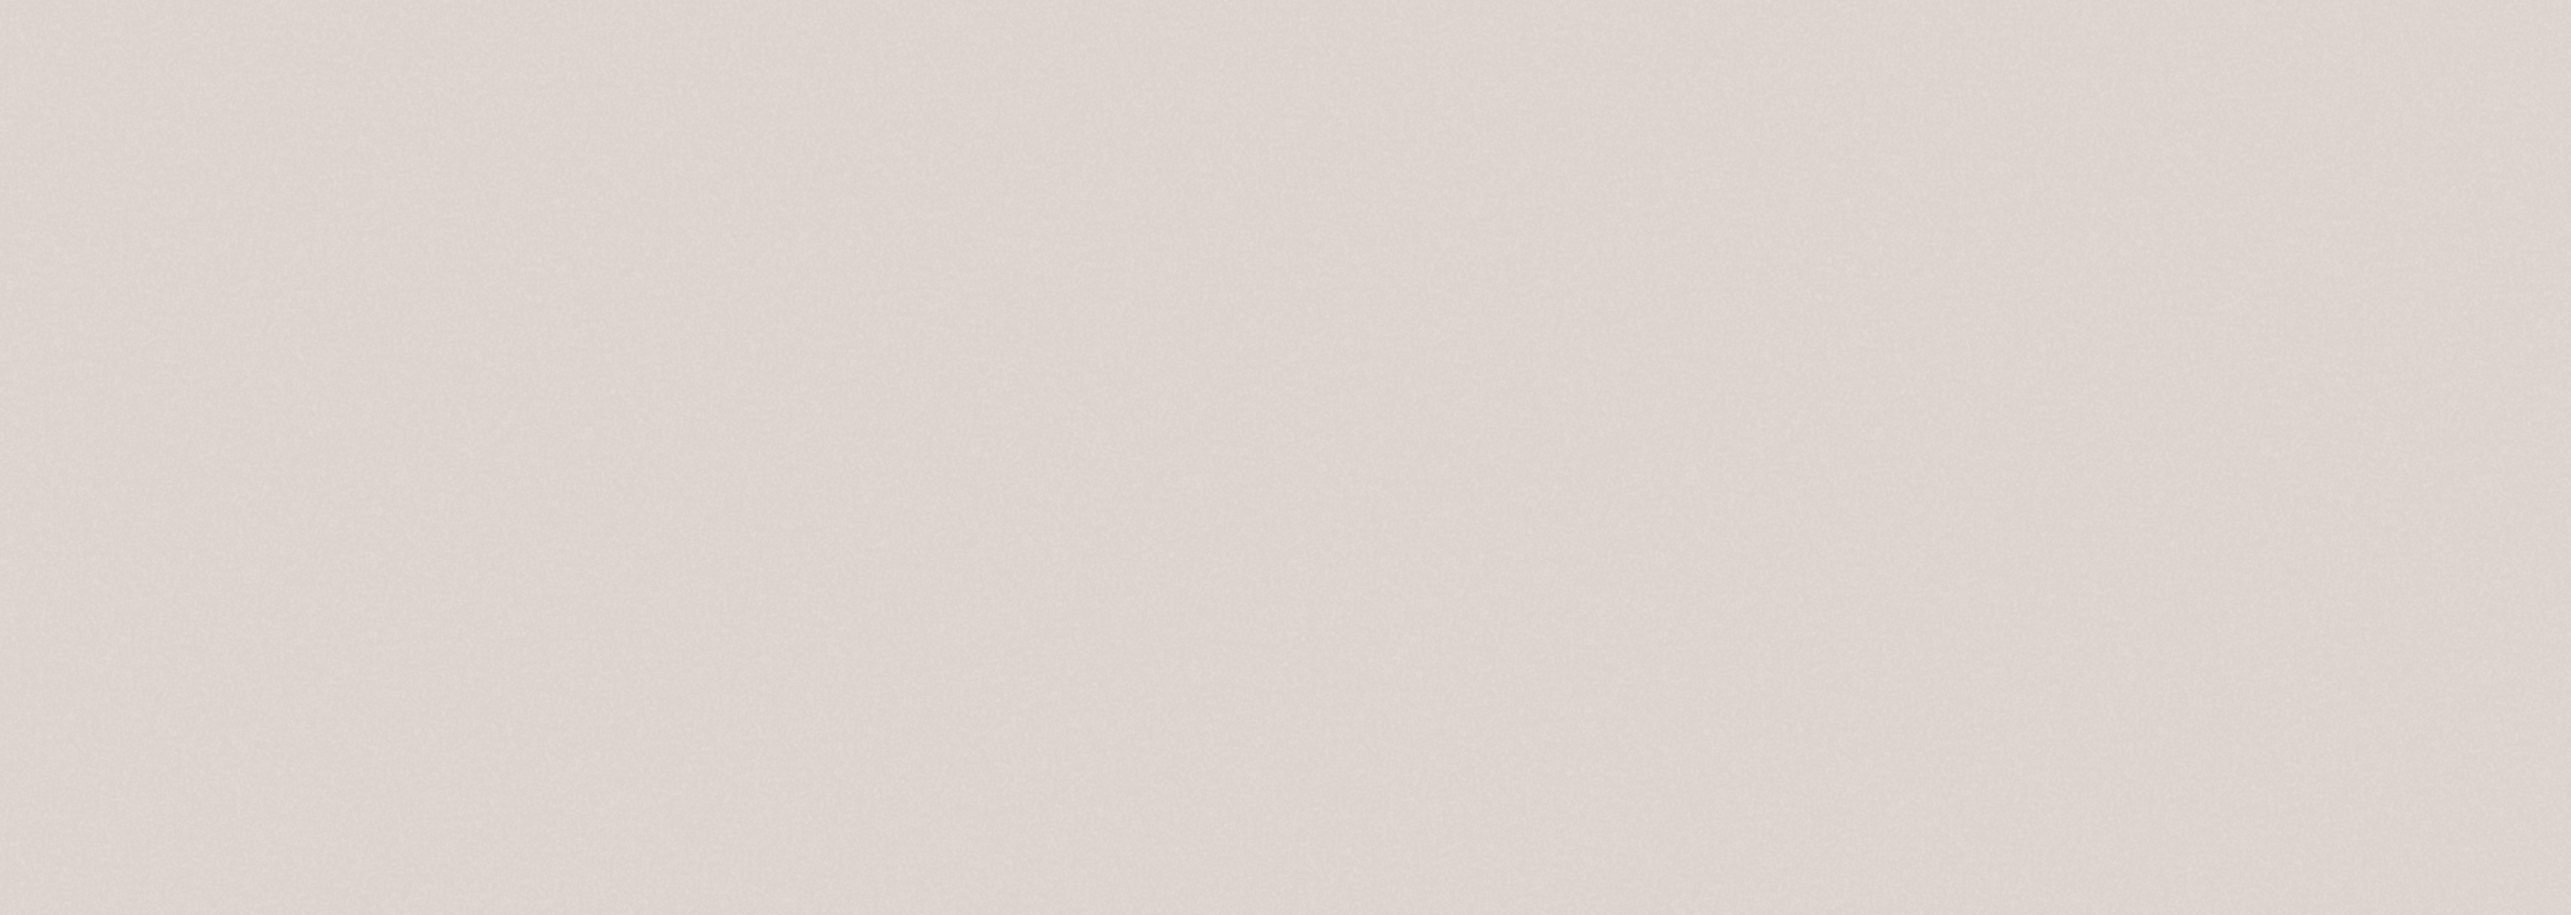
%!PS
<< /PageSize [2571 915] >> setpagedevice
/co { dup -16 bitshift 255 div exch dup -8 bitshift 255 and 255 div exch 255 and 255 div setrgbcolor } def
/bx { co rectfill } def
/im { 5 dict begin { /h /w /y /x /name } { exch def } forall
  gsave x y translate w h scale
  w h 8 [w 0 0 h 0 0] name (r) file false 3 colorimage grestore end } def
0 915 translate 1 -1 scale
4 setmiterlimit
0 0 2571 915 16#EDE2DE bx
(media/1.raw) 0 0 2571 915 im
showpage
